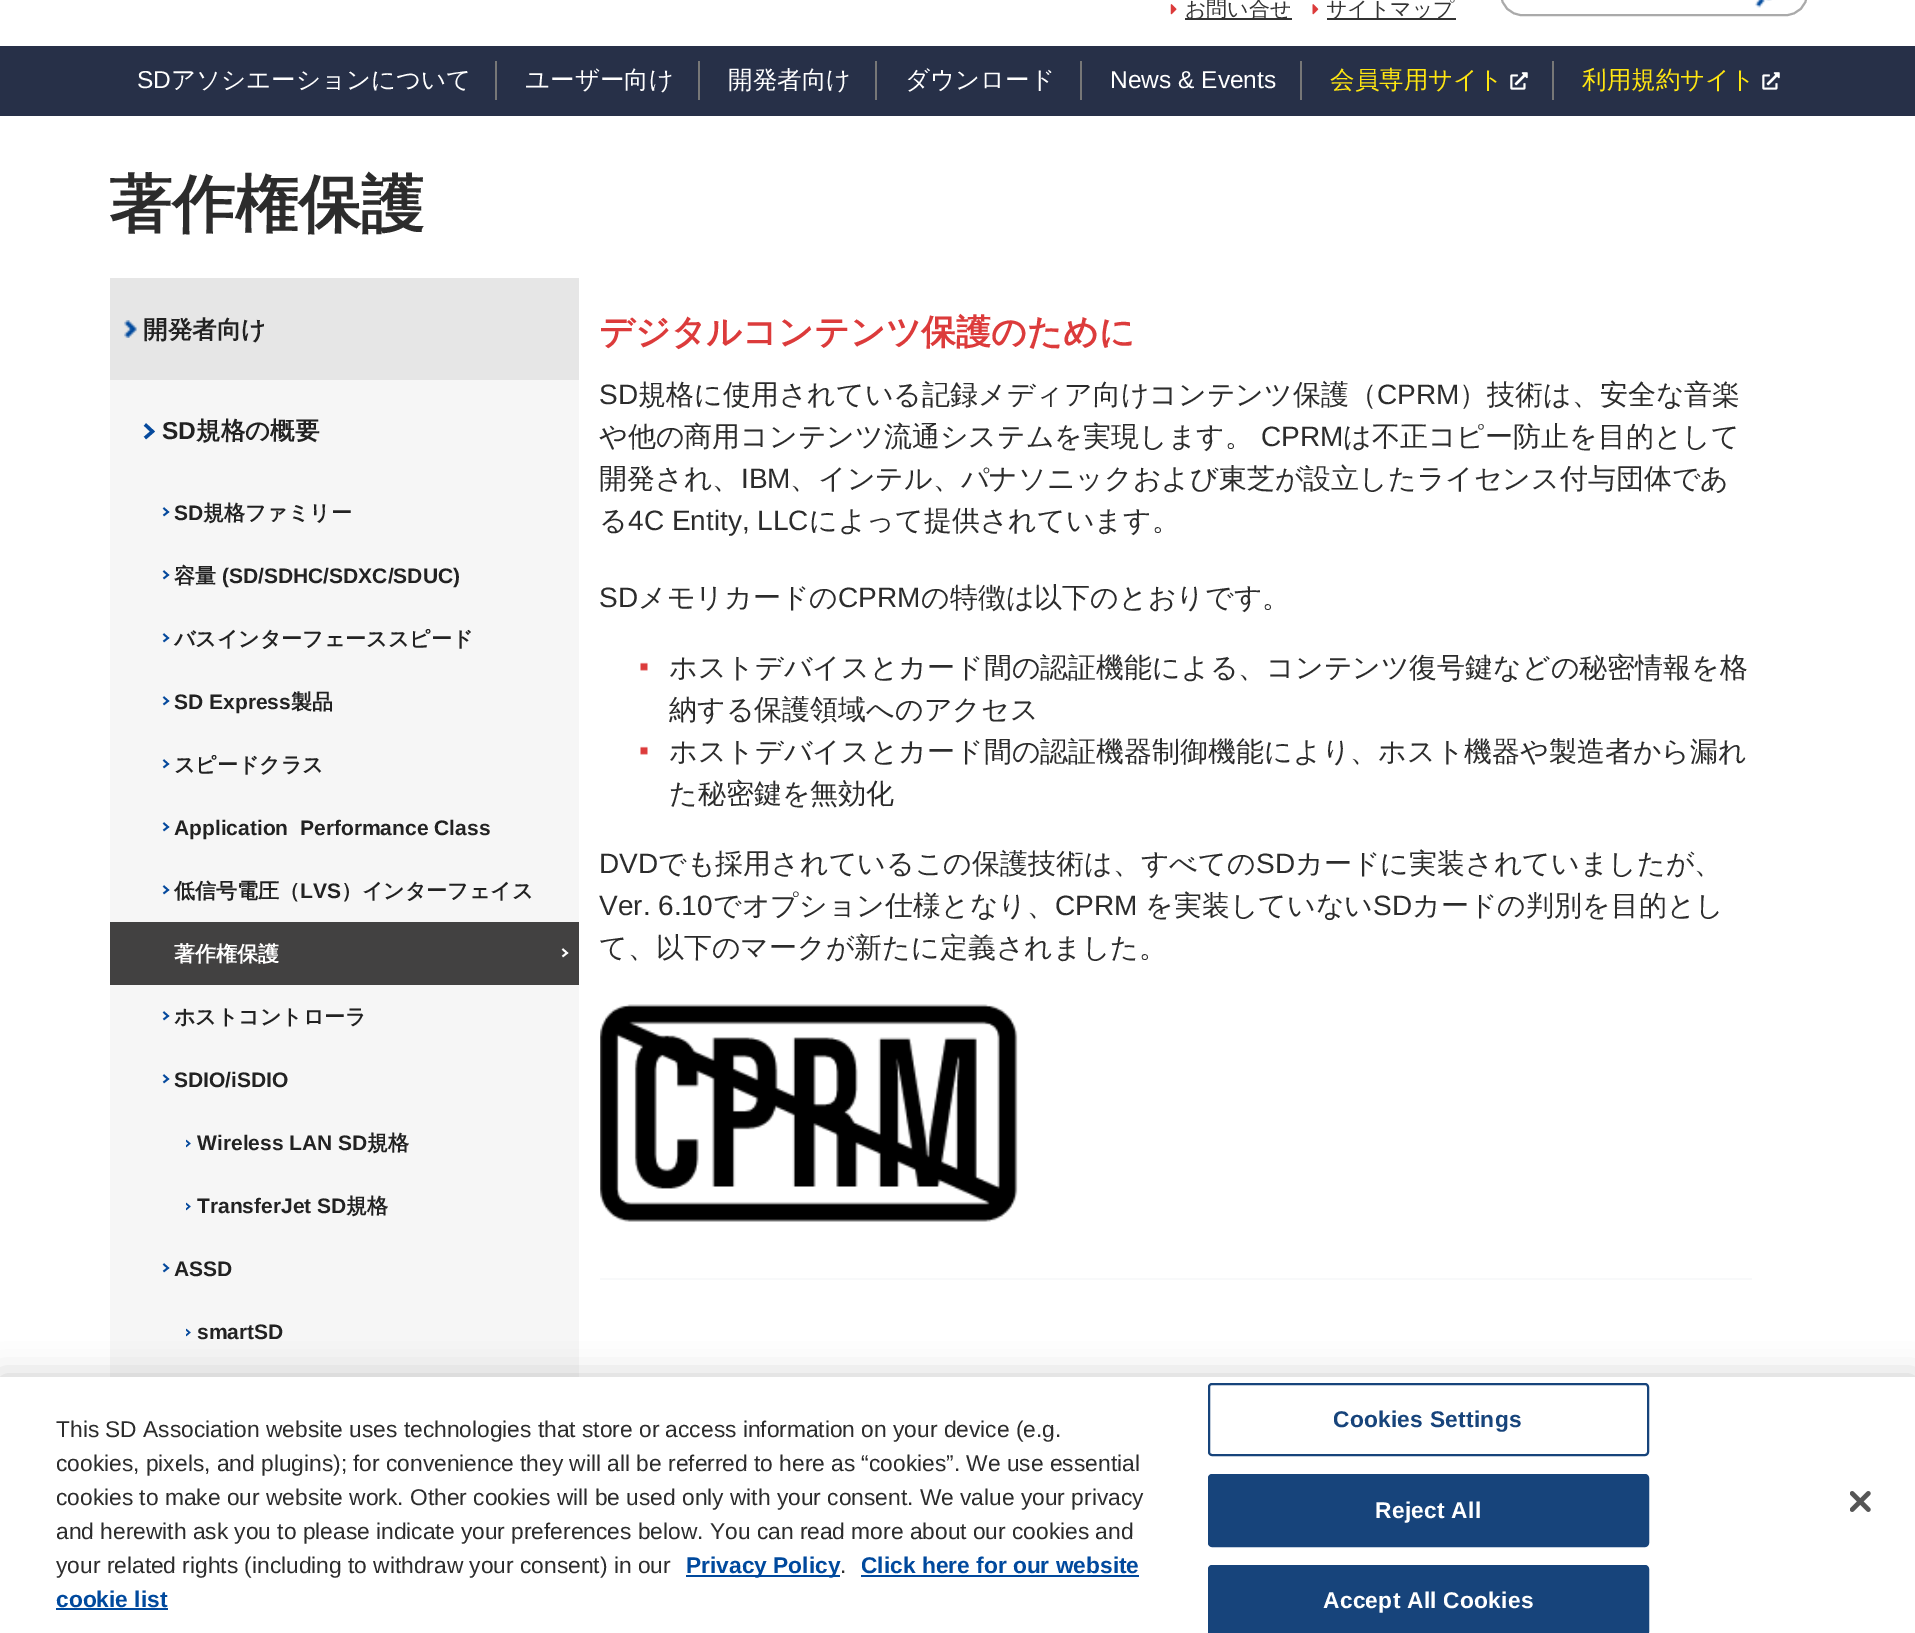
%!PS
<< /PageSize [1915 1633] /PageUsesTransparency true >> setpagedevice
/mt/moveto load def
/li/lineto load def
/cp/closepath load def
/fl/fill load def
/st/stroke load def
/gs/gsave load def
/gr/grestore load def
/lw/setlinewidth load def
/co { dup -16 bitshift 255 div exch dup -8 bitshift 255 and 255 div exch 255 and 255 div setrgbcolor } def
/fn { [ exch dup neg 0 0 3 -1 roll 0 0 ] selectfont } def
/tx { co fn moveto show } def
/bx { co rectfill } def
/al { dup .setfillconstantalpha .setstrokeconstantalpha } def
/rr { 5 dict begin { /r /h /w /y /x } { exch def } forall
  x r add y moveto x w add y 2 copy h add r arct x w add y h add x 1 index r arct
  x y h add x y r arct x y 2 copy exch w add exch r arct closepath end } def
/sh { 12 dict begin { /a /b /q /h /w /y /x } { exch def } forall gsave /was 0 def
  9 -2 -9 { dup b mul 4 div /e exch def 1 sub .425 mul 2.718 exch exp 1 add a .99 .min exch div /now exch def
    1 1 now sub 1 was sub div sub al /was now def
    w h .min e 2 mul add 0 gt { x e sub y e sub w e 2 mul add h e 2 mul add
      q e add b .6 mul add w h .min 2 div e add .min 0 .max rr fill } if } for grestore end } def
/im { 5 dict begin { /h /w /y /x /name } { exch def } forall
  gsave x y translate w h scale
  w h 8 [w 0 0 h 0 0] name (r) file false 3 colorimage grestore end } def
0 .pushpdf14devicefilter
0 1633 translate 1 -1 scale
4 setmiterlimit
0 0 1915 1633 16#FFFFFF bx
(media/1.raw) 1170 4 7 11 im
1185 18 107 2 16#333333 bx
(media/2.raw) 1312 4 7 11 im
1327 18 129 2 16#333333 bx
16#AAAAAA co
2 lw
1501 -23 306 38 21 rr st
(media/3.raw) 1755 0 17 8 im
0 46 1915 70 16#273048 bx
495 61 2 39 16#777777 bx
698 61 2 39 16#777777 bx
875 61 2 39 16#777777 bx
1080 61 2 39 16#777777 bx
1300 61 2 39 16#777777 bx
(media/4.raw) 1510 72 18 18 im
1552 61 2 39 16#777777 bx
(media/4.raw) 1762 72 18 18 im
110 380 469 997 16#F6F6F6 bx
110 278 469 102 16#E6E6E6 bx
(media/5.raw) 124 320 13 18 im
16#064A9D co
3.3 lw
152.5 431.5 mt 145 424.5 li 152.5 431.5 li 145 438 li cp st
1.8 lw
168 512 mt 163.5 508 li 168 512 li 163.5 515.5 li cp st
168 575 mt 163.5 571 li 168 575 li 163.5 578.5 li cp st
168 638 mt 163.5 634 li 168 638 li 163.5 641.5 li cp st
168 701 mt 163.5 697 li 168 701 li 163.5 704.5 li cp st
168 764 mt 163.5 760 li 168 764 li 163.5 767.5 li cp st
168 827 mt 163.5 823 li 168 827 li 163.5 830.5 li cp st
168 890 mt 163.5 886 li 168 890 li 163.5 893.5 li cp st
110 922 469 63 16#424141 bx
16#FFFFFF co
567 953 mt 562.5 949 li 567 953 li 562.5 956.5 li cp st
16#064A9D co
168 1016 mt 163.5 1012 li 168 1016 li 163.5 1019.5 li cp st
168 1079 mt 163.5 1075 li 168 1079 li 163.5 1082.5 li cp st
gs
186 1139 5 9 rectclip
1.5 lw
189.5 1143.5 mt 186 1140.5 li 189.5 1143.5 li 186 1146.5 li cp st
gr
gs
186 1202 5 9 rectclip
1.5 lw
189.5 1206.5 mt 186 1203.5 li 189.5 1206.5 li 186 1209.5 li cp st
gr
168 1268 mt 163.5 1264 li 168 1268 li 163.5 1271.5 li cp st
gs
186 1328 5 9 rectclip
1.5 lw
189.5 1332.5 mt 186 1329.5 li 189.5 1332.5 li 186 1335.5 li cp st
gr
(media/6.raw) 640 662 8 9 im
(media/6.raw) 640 746 8 9 im
(media/7.raw) 600 1004 418 218 im
600 1278 1152 2 16#F8F9FA bx
16#000000 co
0 1377 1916 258 0 16 .2 sh
0 1377 1915 256 16#FFFFFF bx
686 1575 154 2 16#00499D bx
861 1575 278 2 16#00499D bx
56 1608 112 2 16#00499D bx
16#17447B co
2 lw
1209 1384 439 71 3 rr st
1209 1475 439 71 3 rr gs fl gr
st
1209 1566 439 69 3 rr gs fl gr
st
(media/8.raw) 1850 1491 21 21 im
(お問い合せ) 1185 16 /WenQuanYiZenHei-Medium 21 16#333333 tx
(サイトマップ) 1326 16 /WenQuanYiZenHei-Medium 21 16#333333 tx
(SD) 137 88 /LiberationSans-Regular 24.5 16#FFFFFF tx
(アソシエーションについて) 171 88 /WenQuanYiZenHei-Medium 24.5 16#FFFFFF tx
(ユーザー向け) 525 88 /WenQuanYiZenHei-Medium 24.5 16#FFFFFF tx
(開発者向け) 728 88 /WenQuanYiZenHei-Medium 24.5 16#FFFFFF tx
(ダウンロード) 905 88 /WenQuanYiZenHei-Medium 24.5 16#FFFFFF tx
(News & Events) 1110 88 /LiberationSans-Regular 24.5 16#FFFFFF tx
(会員専用サイト) 1330 88 /WenQuanYiZenHei-Medium 24.5 16#FFE611 tx
(利用規約サイト) 1582 88 /WenQuanYiZenHei-Medium 24.5 16#FFE611 tx
(著作権保護) 109 226 /WenQuanYiZenHei-Bold 63 16#2C2C2C tx
(開発者向け) 143 338 /WenQuanYiZenHei-Bold 24.5 16#222222 tx
(SD) 162 439 /LiberationSans-Bold 24.5 16#222222 tx
(規格の概要) 196 439 /WenQuanYiZenHei-Bold 24.5 16#222222 tx
(SD) 174 520 /LiberationSans-Bold 21 16#222222 tx
(規格ファミリー) 203 520 /WenQuanYiZenHei-Bold 21 16#222222 tx
(容量) 174 583 /WenQuanYiZenHei-Bold 21 16#222222 tx
(\(SD/SDHC/SDXC/SDUC\)) 222 583 /LiberationSans-Bold 21 16#222222 tx
(バスインターフェーススピード) 174 646 /WenQuanYiZenHei-Bold 21 16#222222 tx
(SD Express) 174 709 /LiberationSans-Bold 21 16#222222 tx
(製品) 291 709 /WenQuanYiZenHei-Bold 21 16#222222 tx
(スピードクラス) 174 772 /WenQuanYiZenHei-Bold 21 16#222222 tx
(Application  Performance Class) 174 835 /LiberationSans-Bold 21 16#222222 tx
(低信号電圧（) 174 898 /WenQuanYiZenHei-Bold 21 16#222222 tx
(LVS) 300 898 /LiberationSans-Bold 21 16#222222 tx
(）インターフェイス) 341 898 /WenQuanYiZenHei-Bold 21 16#222222 tx
(著作権保護) 174 961 /WenQuanYiZenHei-Bold 21 16#FFFFFF tx
(ホストコントローラ) 174 1024 /WenQuanYiZenHei-Bold 21 16#222222 tx
(SDIO/iSDIO) 174 1087 /LiberationSans-Bold 21 16#222222 tx
(Wireless LAN SD) 197 1150 /LiberationSans-Bold 21 16#222222 tx
(規格) 367 1150 /WenQuanYiZenHei-Bold 21 16#222222 tx
(TransferJet SD) 197 1213 /LiberationSans-Bold 21 16#222222 tx
(規格) 346 1213 /WenQuanYiZenHei-Bold 21 16#222222 tx
(ASSD) 174 1276 /LiberationSans-Bold 21 16#222222 tx
(smartSD) 197 1339 /LiberationSans-Bold 21 16#222222 tx
(デジタルコンテンツ保護のために) 599 344 /WenQuanYiZenHei-Bold 35 16#DC3B3B tx
(SD) 599 404 /LiberationSans-Regular 28 16#2C2C2C tx
(規格に使用されている記録メディア向けコンテンツ保護（) 638 404 /WenQuanYiZenHei-Medium 28 16#2C2C2C tx
(CPRM) 1377 404 /LiberationSans-Regular 28 16#2C2C2C tx
(）技術は、安全な音楽) 1459 404 /WenQuanYiZenHei-Medium 28 16#2C2C2C tx
(や他の商用コンテンツ流通システムを実現します。) 599 446 /WenQuanYiZenHei-Medium 28 16#2C2C2C tx
(CPRM) 1261 446 /LiberationSans-Regular 28 16#2C2C2C tx
(は不正コピー防止を目的として) 1343 446 /WenQuanYiZenHei-Medium 28 16#2C2C2C tx
(開発され、) 599 488 /WenQuanYiZenHei-Medium 28 16#2C2C2C tx
(IBM) 741 488 /LiberationSans-Regular 28 16#2C2C2C tx
(、インテル、パナソニックおよび東芝が設立したライセンス付与団体であ) 790 488 /WenQuanYiZenHei-Medium 28 16#2C2C2C tx
(る) 599 530 /WenQuanYiZenHei-Medium 28 16#2C2C2C tx
(4C Entity, LLC) 628 530 /LiberationSans-Regular 28 16#2C2C2C tx
(によって提供されています。) 809 530 /WenQuanYiZenHei-Medium 28 16#2C2C2C tx
(SD) 599 607 /LiberationSans-Regular 28 16#2C2C2C tx
(メモリカードの) 638 607 /WenQuanYiZenHei-Medium 28 16#2C2C2C tx
(CPRM) 838 607 /LiberationSans-Regular 28 16#2C2C2C tx
(の特徴は以下のとおりです。) 921 607 /WenQuanYiZenHei-Medium 28 16#2C2C2C tx
(ホストデバイスとカード間の認証機能による、コンテンツ復号鍵などの秘密情報を格) 669 677 /WenQuanYiZenHei-Medium 28 16#2C2C2C tx
(納する保護領域へのアクセス) 669 719 /WenQuanYiZenHei-Medium 28 16#2C2C2C tx
(ホストデバイスとカード間の認証機器制御機能により、ホスト機器や製造者から漏れ) 669 761 /WenQuanYiZenHei-Medium 28 16#2C2C2C tx
(た秘密鍵を無効化) 669 803 /WenQuanYiZenHei-Medium 28 16#2C2C2C tx
(DVD) 599 873 /LiberationSans-Regular 28 16#2C2C2C tx
(でも採用されているこの保護技術は、すべての) 658 873 /WenQuanYiZenHei-Medium 28 16#2C2C2C tx
(SD) 1256 873 /LiberationSans-Regular 28 16#2C2C2C tx
(カードに実装されていましたが、) 1295 873 /WenQuanYiZenHei-Medium 28 16#2C2C2C tx
(Ver. 6.10) 599 915 /LiberationSans-Regular 28 16#2C2C2C tx
(でオプション仕様となり、) 713 915 /WenQuanYiZenHei-Medium 28 16#2C2C2C tx
(CPRM) 1055 915 /LiberationSans-Regular 28 16#2C2C2C tx
(を実装していない) 1145 915 /WenQuanYiZenHei-Medium 28 16#2C2C2C tx
(SD) 1373 915 /LiberationSans-Regular 28 16#2C2C2C tx
(カードの判別を目的とし) 1412 915 /WenQuanYiZenHei-Medium 28 16#2C2C2C tx
(て、以下のマークが新たに定義されました。) 599 957 /WenQuanYiZenHei-Medium 28 16#2C2C2C tx
(This SD Association website uses technologies that store or access information on your device \(e.g.) 56 1437 /LiberationSans-Regular 22.75 16#2C2C2C tx
(cookies, pixels, and plugins\); for convenience they will all be referred to here as “cookies”. We use essential) 56 1471 /LiberationSans-Regular 22.75 16#2C2C2C tx
(cookies to make our website work. Other cookies will be used only with your consent. We value your privacy) 56 1505 /LiberationSans-Regular 22.75 16#2C2C2C tx
(and herewith ask you to please indicate your preferences below. You can read more about our cookies and) 56 1539 /LiberationSans-Regular 22.75 16#2C2C2C tx
(your related rights \(including to withdraw your consent\) in our) 56 1573 /LiberationSans-Regular 22.75 16#2C2C2C tx
(Privacy Policy) 686 1573 /LiberationSans-Bold 22.75 16#00499D tx
(.) 840 1573 /LiberationSans-Regular 22.75 16#2C2C2C tx
(Click here for our website) 861 1573 /LiberationSans-Bold 22.75 16#00499D tx
(cookie list) 56 1607 /LiberationSans-Bold 22.75 16#00499D tx
16#17447B co
1333 1427 mt .25 0 (Cookies Settings) ashow
16#FFFFFF co
1375 1518 mt .25 0 (Reject All) ashow
1323 1608 mt .25 0 (Accept All Cookies) ashow
.poppdf14devicefilter showpage
